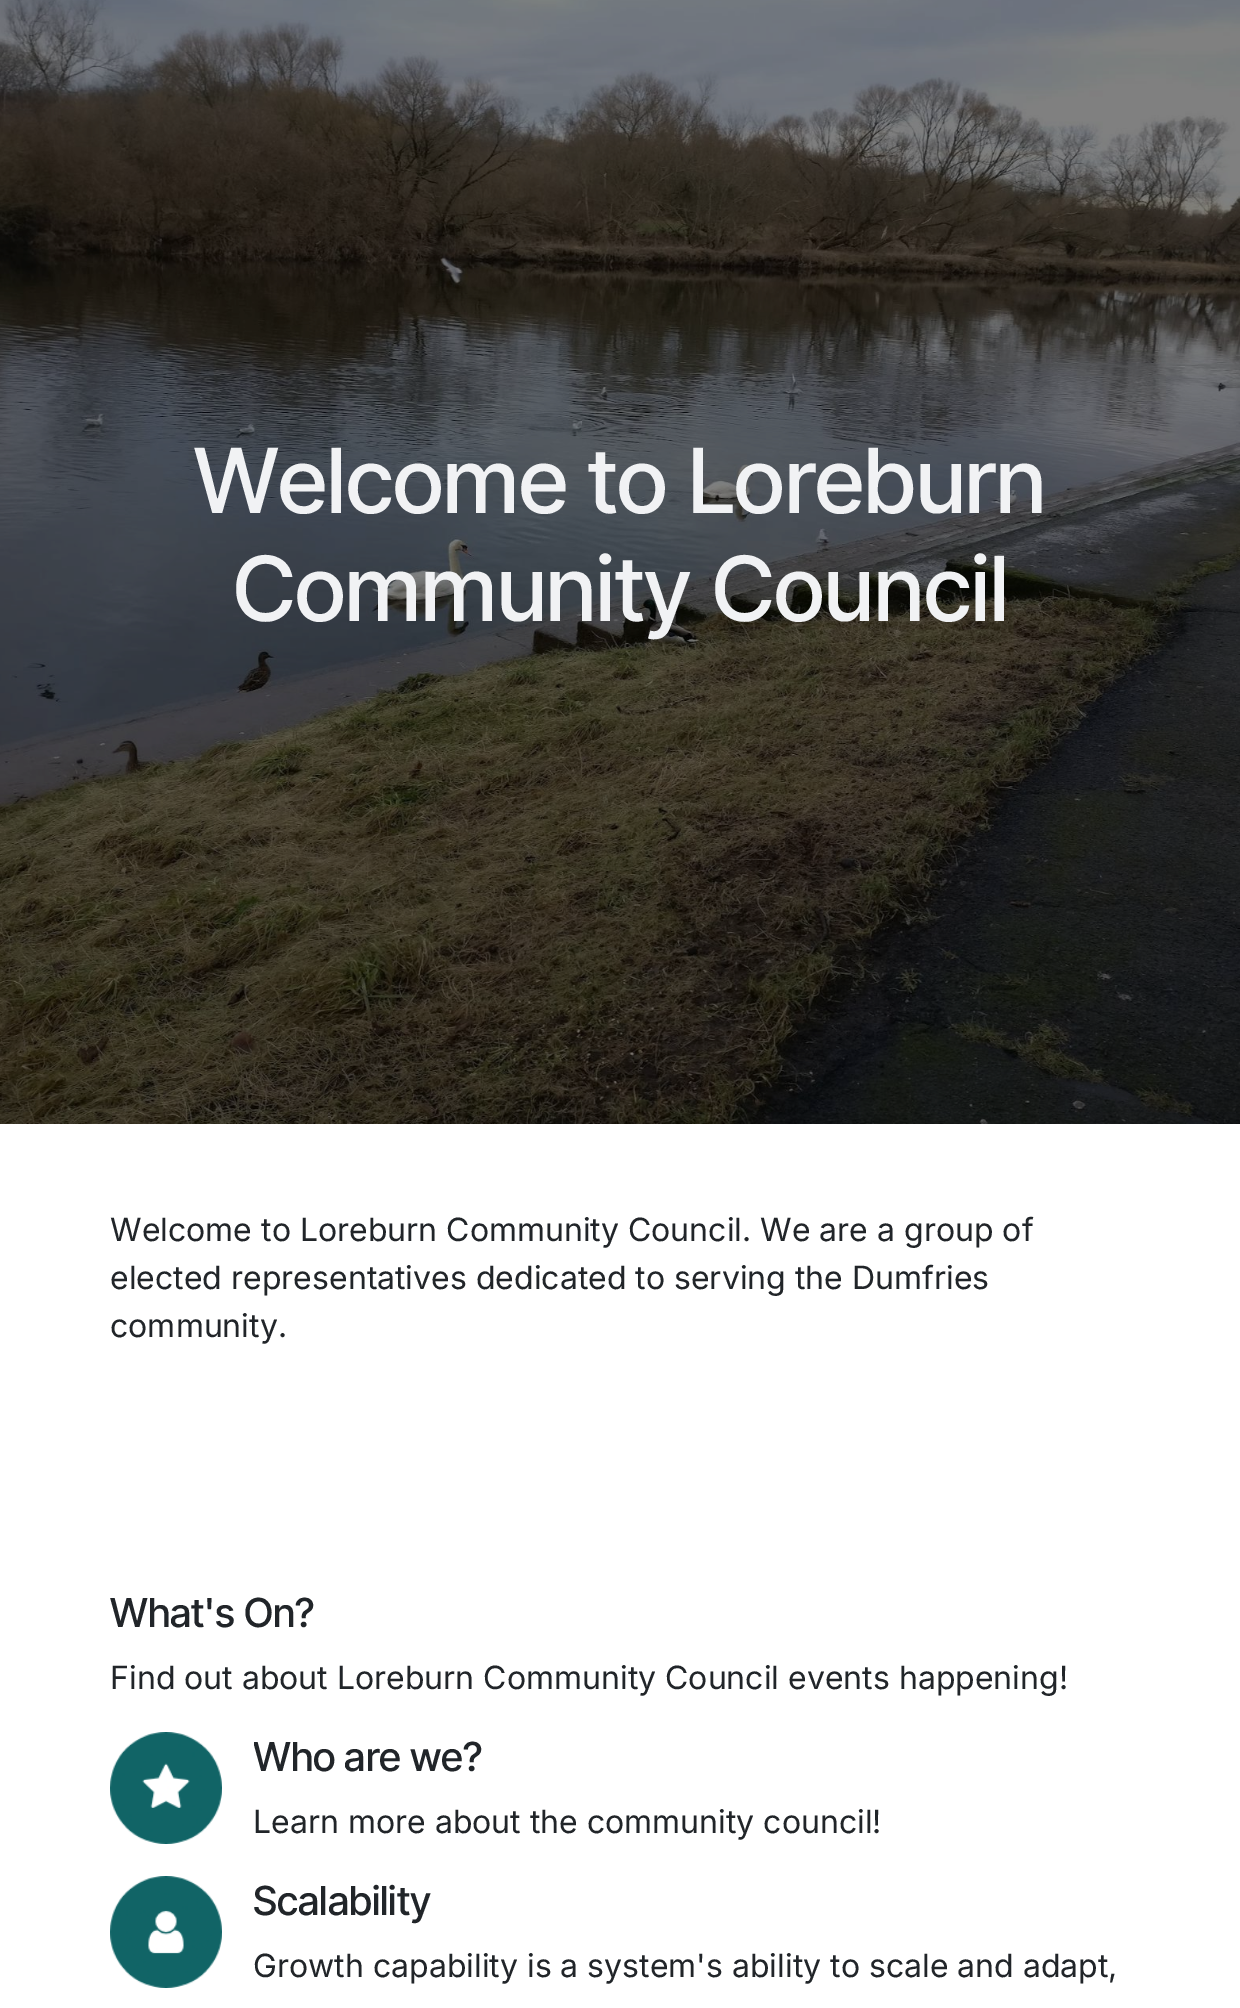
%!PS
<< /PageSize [1240 2008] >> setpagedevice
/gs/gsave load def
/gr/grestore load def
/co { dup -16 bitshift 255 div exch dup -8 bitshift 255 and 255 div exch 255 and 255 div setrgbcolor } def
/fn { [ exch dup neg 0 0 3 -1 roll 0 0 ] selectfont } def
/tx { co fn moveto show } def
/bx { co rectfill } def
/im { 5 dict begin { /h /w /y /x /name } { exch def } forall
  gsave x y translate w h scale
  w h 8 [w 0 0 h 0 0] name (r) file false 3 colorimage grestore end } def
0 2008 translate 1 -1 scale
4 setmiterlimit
0 0 1240 2008 16#FFFFFF bx
(media/1.raw) 0 0 1240 1124 im
(media/2.raw) 110 1732 112 112 im
(media/3.raw) 110 1876 112 112 im
(Welcome to Loreburn) 194 513 /InterTight-Medium 89.75 16#F1F2F4 tx
(Community Council) 233 621 /InterTight-Medium 89.75 16#F1F2F4 tx
(Welcome to Loreburn Community Council. We are a group of) 110 1241 /Inter-Regular 32 16#212529 tx
(elected representatives dedicated to serving the Dumfries) 110 1289 /Inter-Regular 32 16#212529 tx
(community.) 110 1337 /Inter-Regular 32 16#212529 tx
(What's On?) 110 1627 /InterTight-Medium 40 16#212529 tx
(Find out about Loreburn Community Council events happening!) 110 1689 /Inter-Regular 32 16#212529 tx
gs
254 1732 876 144 rectclip
(Who are we?) 253 1771 /InterTight-Medium 40 16#212529 tx
gr
(Learn more about the community council!) 253 1833 /Inter-Regular 32 16#212529 tx
(Scalability) 253 1915 /InterTight-Medium 40 16#212529 tx
(Growth capability is a system's ability to scale and adapt,) 253 1977 /Inter-Regular 32 16#212529 tx
showpage
